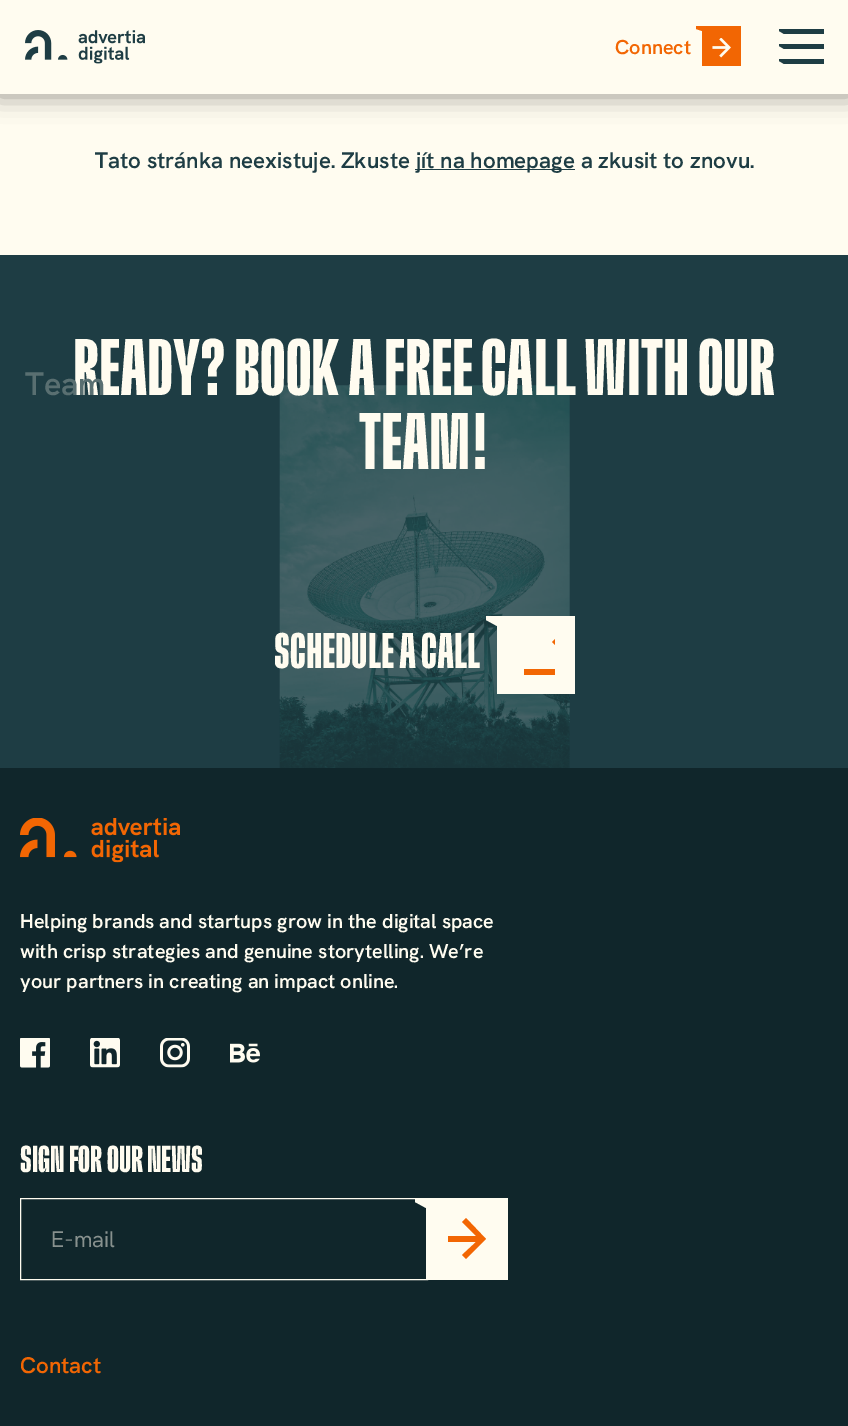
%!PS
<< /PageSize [848 1426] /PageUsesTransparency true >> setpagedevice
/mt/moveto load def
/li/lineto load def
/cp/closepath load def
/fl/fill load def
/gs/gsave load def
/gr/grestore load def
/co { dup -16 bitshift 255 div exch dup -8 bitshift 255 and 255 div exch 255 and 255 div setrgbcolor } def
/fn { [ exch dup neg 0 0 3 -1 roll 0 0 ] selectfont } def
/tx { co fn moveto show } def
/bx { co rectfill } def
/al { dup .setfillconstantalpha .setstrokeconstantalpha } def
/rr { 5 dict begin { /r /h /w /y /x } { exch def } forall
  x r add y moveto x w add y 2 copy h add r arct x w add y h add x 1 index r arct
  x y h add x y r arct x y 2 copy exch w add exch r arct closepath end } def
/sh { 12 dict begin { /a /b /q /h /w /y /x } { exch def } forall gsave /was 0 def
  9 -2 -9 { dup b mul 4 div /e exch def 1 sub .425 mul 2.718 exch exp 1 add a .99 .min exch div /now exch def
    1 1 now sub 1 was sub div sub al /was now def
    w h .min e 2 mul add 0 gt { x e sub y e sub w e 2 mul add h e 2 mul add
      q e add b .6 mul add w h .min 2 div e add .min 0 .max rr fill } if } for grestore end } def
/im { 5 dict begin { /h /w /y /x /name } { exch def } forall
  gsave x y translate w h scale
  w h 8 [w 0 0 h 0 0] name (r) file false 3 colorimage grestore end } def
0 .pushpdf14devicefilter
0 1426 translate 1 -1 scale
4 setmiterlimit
0 0 848 1426 16#FFFCF0 bx
16#000000 co
-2 -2 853 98 0 12.5 .41 sh
0 0 848 94 16#FFFCF0 bx
(media/1.raw) 25 30 120 34 im
16#F26603 co
696 26 mt 696 29 li 702 31 li 702 66 li 741 66 li 741 26 li cp fl
(media/2.raw) 712 38 19 20 im
16#1E3D44 co
779 29 mt 779 31 li 784 34 li 824 34 li 824 29 li cp 779 44 mt 779 46 li 784 49 li 824 49 li 824 44 li cp 779 59 mt 779 61 li 784 64 li 824 64 li 824 59 li cp fl
415 169 160 1 16#1E3D44 bx
0 255 848 513 16#1E3D44 bx
(media/3.raw) 279 385 291 383 im
16#FFFCF0 co
486 616 mt 486 620 li 497 626 li 497 694 li 575 694 li 575 616 li cp fl
gs
516 634 39 41 rectclip
16#F26603 co
560 634 mt 552 642 li 579 669 li 524 669 li 524 681 li 579 681 li 552 708 li 560 716 li 601 675 li cp fl
gr
0 768 848 658 16#10262B bx
(media/4.raw) 20 818 160 45 im
(media/5.raw) 20 1038 30 30 im
(media/6.raw) 90 1038 30 30 im
(media/7.raw) 160 1038 30 30 im
(media/8.raw) 230 1043 30 20 im
16#FFFCF0 co
20.5 1198.5 407 81 rectstroke
415 1198 mt 415 1202 li 426 1208 li 426 1280 li 508 1280 li 508 1198 li cp fl
16#F26603 co
466 1218 mt 462 1222 li 476 1236 li 448 1236 li 448 1242 li 476 1242 li 462 1255 li 466 1259 li 486 1239 li cp fl
(Connect) 615 54 /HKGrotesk-SemiBold 20 16#F26603 tx
(Tato stránka neexistuje. Zkuste) 95 168 /HKGrotesk-SemiBold 22.5 16#1E3D44 tx
(jít na homepage a zkusit to znovu.) 416 168 /HKGrotesk-SemiBold 22.5 16#1E3D44 tx
(READY? BOOK A FREE CALL WITH OUR) 73 395 /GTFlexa-Bold 80 16#FFFCF0 tx
(Team) 25 395 /HKGrotesk-SemiBold 32.5 16#596F71 tx
(TEAM!) 359 469 /GTFlexa-Bold 80 16#FFFCF0 tx
(SCHEDULE A CALL) 274 668 /GTFlexa-Bold 50 16#FFFCF0 tx
(Helping brands and startups grow in the digital space) 20 928 /HKGrotesk-SemiBold 20 16#FFFCF0 tx
(with crisp strategies and genuine storytelling. We’re) 20 958 /HKGrotesk-SemiBold 20 16#FFFCF0 tx
(your partners in creating an impact online.) 20 988 /HKGrotesk-SemiBold 20 16#FFFCF0 tx
(SIGN FOR OUR NEWS) 20 1172 /GTFlexa-Bold 37.5 16#FFFCF0 tx
(E-mail) 51 1247 /HKGrotesk-Regular 22.5 16#88918E tx
(Contact) 20 1373 /HKGrotesk-SemiBold 22.5 16#F26603 tx
.poppdf14devicefilter showpage
